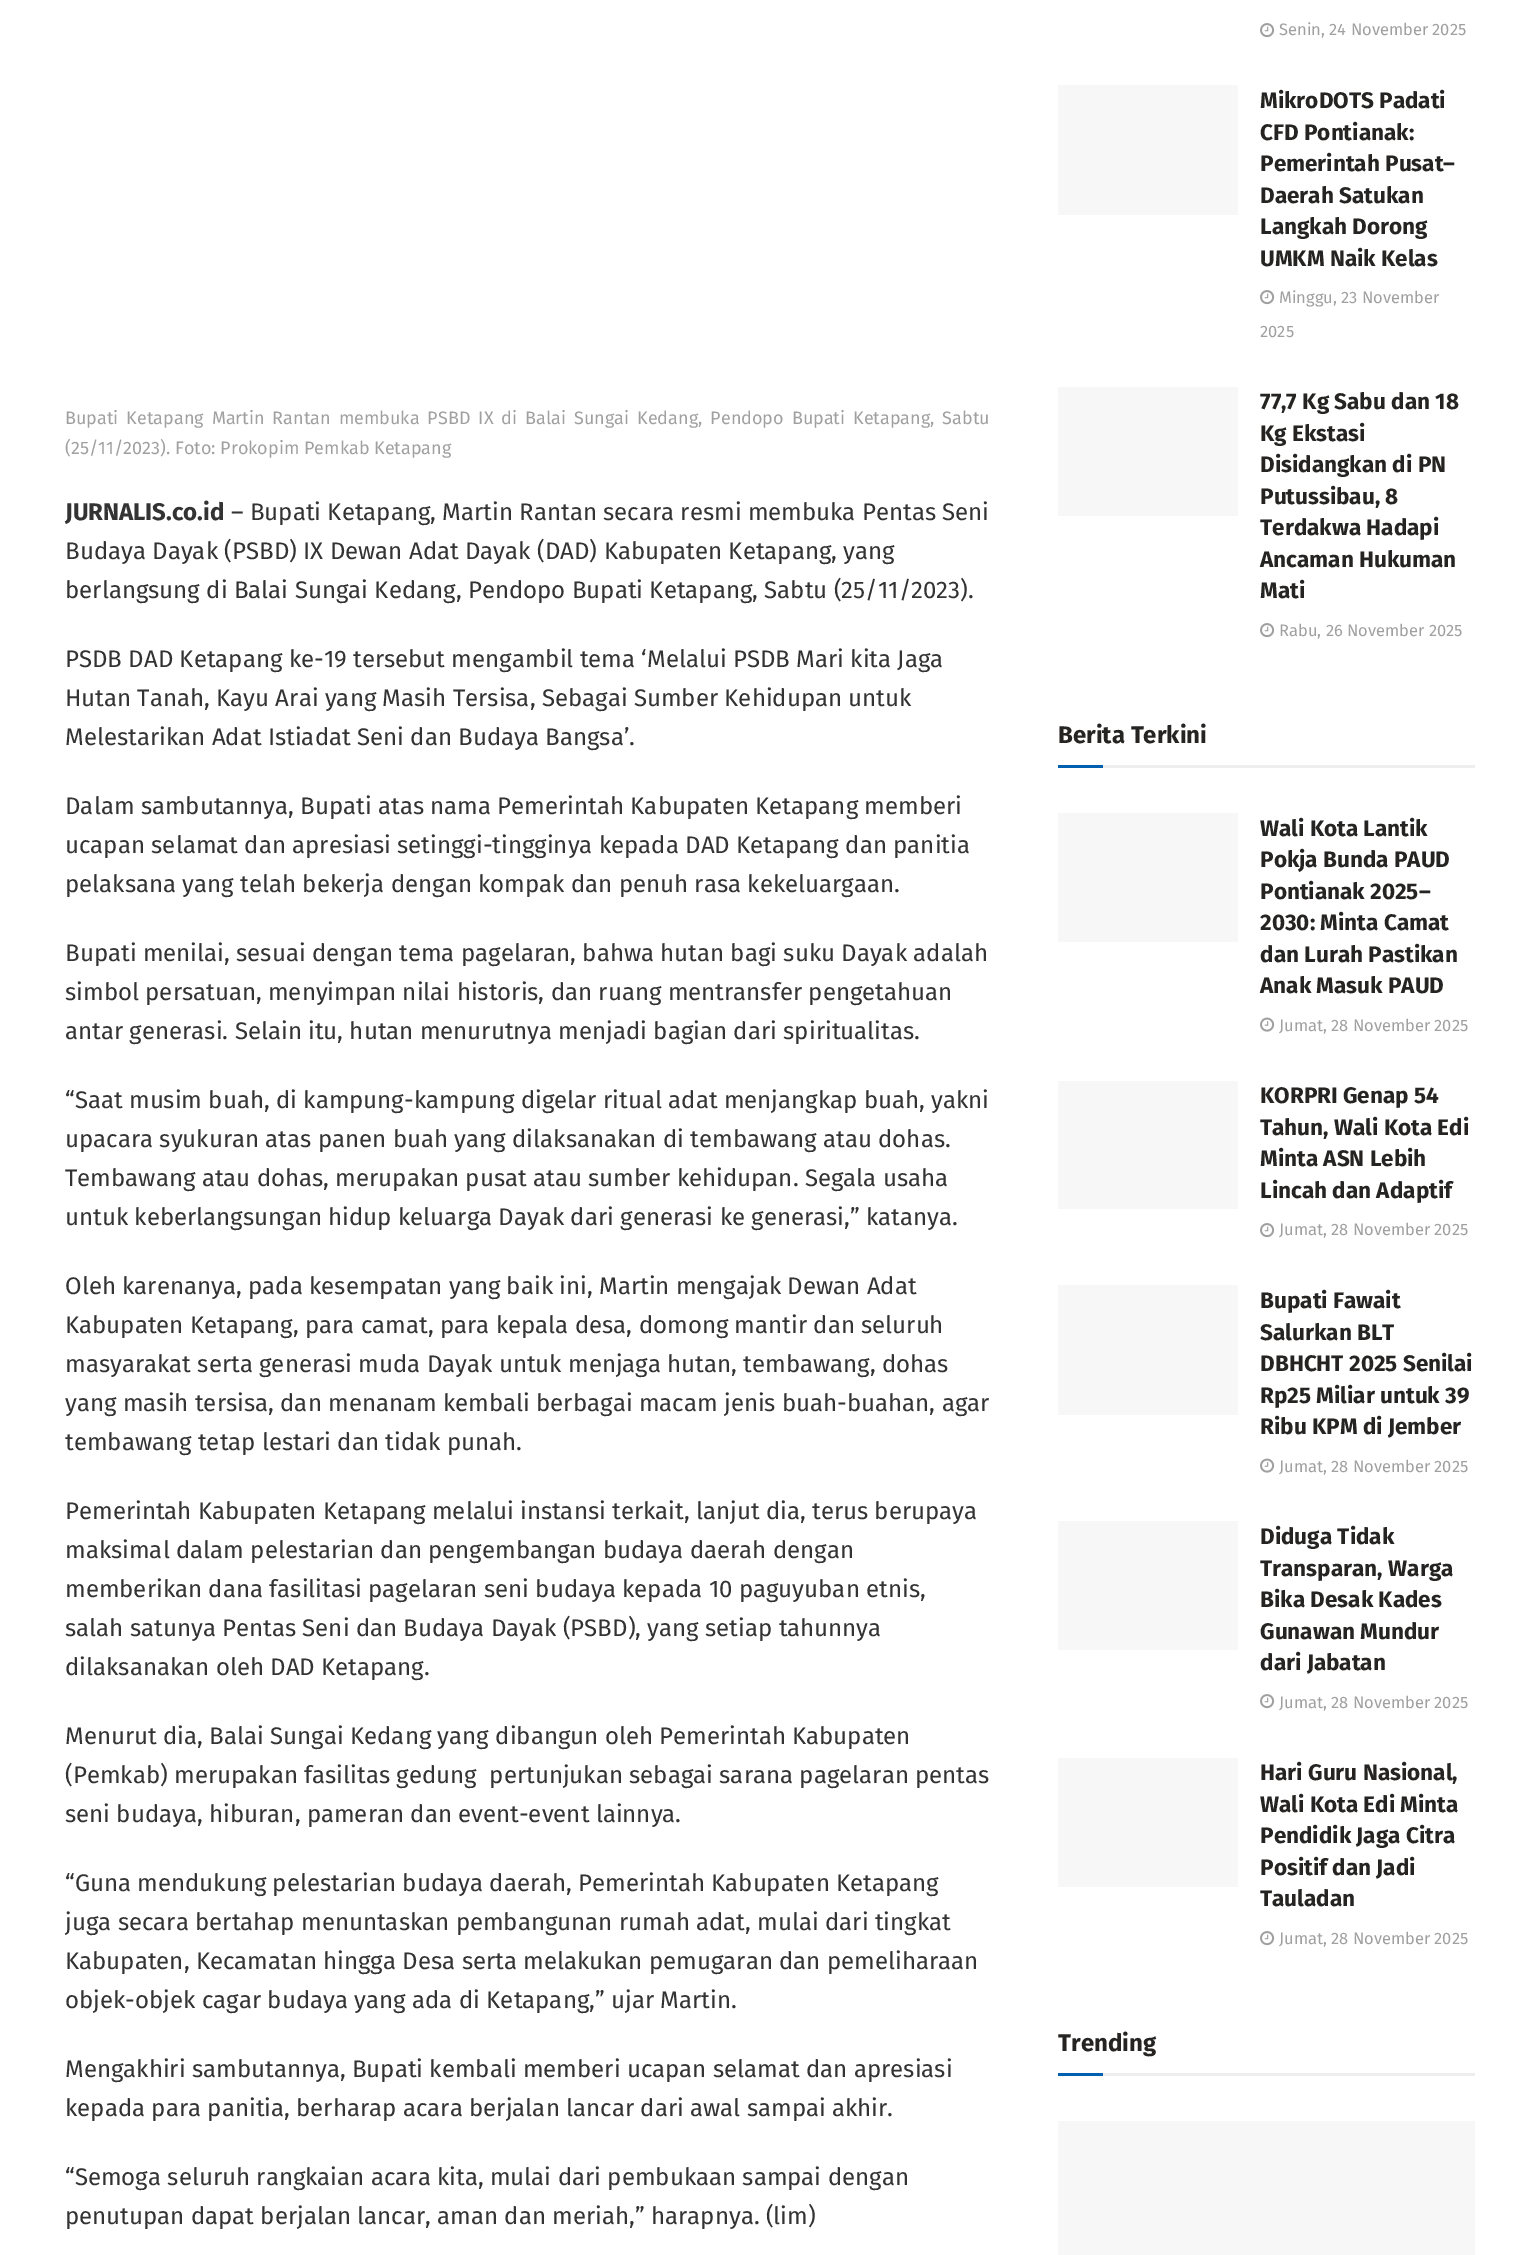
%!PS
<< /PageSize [1540 2255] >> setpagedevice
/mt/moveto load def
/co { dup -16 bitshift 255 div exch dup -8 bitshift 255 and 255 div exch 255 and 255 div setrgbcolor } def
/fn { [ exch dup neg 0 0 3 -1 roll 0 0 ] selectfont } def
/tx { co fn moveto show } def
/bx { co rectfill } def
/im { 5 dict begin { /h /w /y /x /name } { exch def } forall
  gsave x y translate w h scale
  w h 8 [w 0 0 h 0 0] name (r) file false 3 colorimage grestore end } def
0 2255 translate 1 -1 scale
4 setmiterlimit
0 0 1540 2255 16#FFFFFF bx
(media/1.raw) 1260 23 15 15 im
1058 86 180 129 16#F7F7F7 bx
1058 85 179 1 16#F7F7F7 bx
(media/1.raw) 1260 290 15 15 im
1058 387 180 129 16#F7F7F7 bx
(media/1.raw) 1260 623 15 15 im
1103 765 372 3 16#EEEEEE bx
1058 765 45 3 16#005FAF bx
1058 813 180 129 16#F7F7F7 bx
(media/2.raw) 1260 1017 15 15 im
1058 1082 180 127 16#F7F7F7 bx
1058 1081 179 1 16#F7F7F7 bx
(media/1.raw) 1260 1223 15 15 im
1058 1286 180 129 16#F7F7F7 bx
1058 1285 179 1 16#F7F7F7 bx
(media/2.raw) 1260 1458 15 15 im
1058 1521 180 129 16#F7F7F7 bx
(media/1.raw) 1260 1694 15 15 im
1058 1758 180 129 16#F7F7F7 bx
(media/1.raw) 1260 1931 15 15 im
1103 2073 372 3 16#EEEEEE bx
1058 2073 45 3 16#005FAF bx
1058 2121 417 134 16#F7F7F7 bx
/FiraSans-Regular 18 fn
16#A0A0A0 co
65 424 mt 3.25 0 32 (Bupati Ketapang Martin Rantan membuka PSBD IX di Balai Sungai Kedang, Pendopo Bupati Ketapang, Sabtu) widthshow
(\(25/11/2023\). Foto: Prokopim Pemkab Ketapang) 65 454 /FiraSans-Regular 18 16#A0A0A0 tx
(JURNALIS.co.id) 65 520 /FiraSans-Bold 24 16#333333 tx
(– Bupati Ketapang, Martin Rantan secara resmi membuka Pentas Seni) 231 520 /FiraSans-Regular 24 16#333333 tx
(Budaya Dayak \(PSBD\) IX Dewan Adat Dayak \(DAD\) Kabupaten Ketapang, yang) 65 559 /FiraSans-Regular 24 16#333333 tx
(berlangsung di Balai Sungai Kedang, Pendopo Bupati Ketapang, Sabtu \(25/11/2023\).) 65 598 /FiraSans-Regular 24 16#333333 tx
(PSDB DAD Ketapang ke-19 tersebut mengambil tema ‘Melalui PSDB Mari kita Jaga) 65 667 /FiraSans-Regular 24 16#333333 tx
(Hutan Tanah, Kayu Arai yang Masih Tersisa, Sebagai Sumber Kehidupan untuk) 65 706 /FiraSans-Regular 24 16#333333 tx
(Melestarikan Adat Istiadat Seni dan Budaya Bangsa’.) 65 745 /FiraSans-Regular 24 16#333333 tx
(Dalam sambutannya, Bupati atas nama Pemerintah Kabupaten Ketapang memberi) 65 814 /FiraSans-Regular 24 16#333333 tx
(ucapan selamat dan apresiasi setinggi-tingginya kepada DAD Ketapang dan panitia) 65 853 /FiraSans-Regular 24 16#333333 tx
(pelaksana yang telah bekerja dengan kompak dan penuh rasa kekeluargaan.) 65 892 /FiraSans-Regular 24 16#333333 tx
(Bupati menilai, sesuai dengan tema pagelaran, bahwa hutan bagi suku Dayak adalah) 65 961 /FiraSans-Regular 24 16#333333 tx
(simbol persatuan, menyimpan nilai historis, dan ruang mentransfer pengetahuan) 65 1000 /FiraSans-Regular 24 16#333333 tx
(antar generasi. Selain itu, hutan menurutnya menjadi bagian dari spiritualitas.) 65 1039 /FiraSans-Regular 24 16#333333 tx
(“Saat musim buah, di kampung-kampung digelar ritual adat menjangkap buah, yakni) 65 1108 /FiraSans-Regular 24 16#333333 tx
(upacara syukuran atas panen buah yang dilaksanakan di tembawang atau dohas.) 65 1147 /FiraSans-Regular 24 16#333333 tx
(Tembawang atau dohas, merupakan pusat atau sumber kehidupan. Segala usaha) 65 1186 /FiraSans-Regular 24 16#333333 tx
(untuk keberlangsungan hidup keluarga Dayak dari generasi ke generasi,” katanya.) 65 1225 /FiraSans-Regular 24 16#333333 tx
(Oleh karenanya, pada kesempatan yang baik ini, Martin mengajak Dewan Adat) 65 1294 /FiraSans-Regular 24 16#333333 tx
(Kabupaten Ketapang, para camat, para kepala desa, domong mantir dan seluruh) 65 1333 /FiraSans-Regular 24 16#333333 tx
(masyarakat serta generasi muda Dayak untuk menjaga hutan, tembawang, dohas) 65 1372 /FiraSans-Regular 24 16#333333 tx
(yang masih tersisa, dan menanam kembali berbagai macam jenis buah-buahan, agar) 65 1411 /FiraSans-Regular 24 16#333333 tx
(tembawang tetap lestari dan tidak punah.) 65 1450 /FiraSans-Regular 24 16#333333 tx
(Pemerintah Kabupaten Ketapang melalui instansi terkait, lanjut dia, terus berupaya) 65 1519 /FiraSans-Regular 24 16#333333 tx
(maksimal dalam pelestarian dan pengembangan budaya daerah dengan) 65 1558 /FiraSans-Regular 24 16#333333 tx
(memberikan dana fasilitasi pagelaran seni budaya kepada 10 paguyuban etnis,) 65 1597 /FiraSans-Regular 24 16#333333 tx
(salah satunya Pentas Seni dan Budaya Dayak \(PSBD\), yang setiap tahunnya) 65 1636 /FiraSans-Regular 24 16#333333 tx
(dilaksanakan oleh DAD Ketapang.) 65 1675 /FiraSans-Regular 24 16#333333 tx
(Menurut dia, Balai Sungai Kedang yang dibangun oleh Pemerintah Kabupaten) 65 1744 /FiraSans-Regular 24 16#333333 tx
(\(Pemkab\) merupakan fasilitas gedung  pertunjukan sebagai sarana pagelaran pentas) 65 1783 /FiraSans-Regular 24 16#333333 tx
(seni budaya, hiburan, pameran dan event-event lainnya.) 65 1822 /FiraSans-Regular 24 16#333333 tx
(“Guna mendukung pelestarian budaya daerah, Pemerintah Kabupaten Ketapang) 65 1891 /FiraSans-Regular 24 16#333333 tx
(juga secara bertahap menuntaskan pembangunan rumah adat, mulai dari tingkat) 65 1930 /FiraSans-Regular 24 16#333333 tx
(Kabupaten, Kecamatan hingga Desa serta melakukan pemugaran dan pemeliharaan) 65 1969 /FiraSans-Regular 24 16#333333 tx
(objek-objek cagar budaya yang ada di Ketapang,” ujar Martin.) 65 2008 /FiraSans-Regular 24 16#333333 tx
(Mengakhiri sambutannya, Bupati kembali memberi ucapan selamat dan apresiasi) 65 2077 /FiraSans-Regular 24 16#333333 tx
(kepada para panitia, berharap acara berjalan lancar dari awal sampai akhir.) 65 2116 /FiraSans-Regular 24 16#333333 tx
(“Semoga seluruh rangkaian acara kita, mulai dari pembukaan sampai dengan) 65 2185 /FiraSans-Regular 24 16#333333 tx
(penutupan dapat berjalan lancar, aman dan meriah,” harapnya. \(lim\)) 65 2224 /FiraSans-Regular 24 16#333333 tx
(Senin, 24 November 2025) 1279 35 /FiraSans-Regular 16.5 16#A0A0A0 tx
(MikroDOTS Padati) 1260 108 /FiraSans-Bold 22.5 16#252422 tx
(CFD Pontianak:) 1260 140 /FiraSans-Bold 22.5 16#252422 tx
(Pemerintah Pusat–) 1260 171 /FiraSans-Bold 22.5 16#252422 tx
(Daerah Satukan) 1260 203 /FiraSans-Bold 22.5 16#252422 tx
(Langkah Dorong) 1260 234 /FiraSans-Bold 22.5 16#252422 tx
(UMKM Naik Kelas) 1260 266 /FiraSans-Bold 22.5 16#252422 tx
(Minggu, 23 November) 1279 303 /FiraSans-Regular 16.5 16#A0A0A0 tx
(2025) 1260 337 /FiraSans-Regular 16.5 16#A0A0A0 tx
(77,7 Kg Sabu dan 18) 1260 409 /FiraSans-Bold 22.5 16#252422 tx
(Kg Ekstasi) 1260 441 /FiraSans-Bold 22.5 16#252422 tx
(Disidangkan di PN) 1260 472 /FiraSans-Bold 22.5 16#252422 tx
(Putussibau, 8) 1260 504 /FiraSans-Bold 22.5 16#252422 tx
(Terdakwa Hadapi) 1260 535 /FiraSans-Bold 22.5 16#252422 tx
(Ancaman Hukuman) 1260 567 /FiraSans-Bold 22.5 16#252422 tx
(Mati) 1260 598 /FiraSans-Bold 22.5 16#252422 tx
(Rabu, 26 November 2025) 1279 636 /FiraSans-Regular 16.5 16#A0A0A0 tx
(Berita Terkini) 1058 743 /FiraSans-Bold 24 16#252422 tx
(Wali Kota Lantik) 1260 836 /FiraSans-Bold 22.5 16#252422 tx
(Pokja Bunda PAUD) 1260 867 /FiraSans-Bold 22.5 16#252422 tx
(Pontianak 2025–) 1260 899 /FiraSans-Bold 22.5 16#252422 tx
(2030: Minta Camat) 1260 930 /FiraSans-Bold 22.5 16#252422 tx
(dan Lurah Pastikan) 1260 962 /FiraSans-Bold 22.5 16#252422 tx
(Anak Masuk PAUD) 1260 993 /FiraSans-Bold 22.5 16#252422 tx
(Jumat, 28 November 2025) 1279 1031 /FiraSans-Regular 16.5 16#A0A0A0 tx
(KORPRI Genap 54) 1260 1103 /FiraSans-Bold 22.5 16#252422 tx
(Tahun, Wali Kota Edi) 1260 1135 /FiraSans-Bold 22.5 16#252422 tx
(Minta ASN Lebih) 1260 1166 /FiraSans-Bold 22.5 16#252422 tx
(Lincah dan Adaptif) 1260 1198 /FiraSans-Bold 22.5 16#252422 tx
(Jumat, 28 November 2025) 1279 1235 /FiraSans-Regular 16.5 16#A0A0A0 tx
(Bupati Fawait) 1260 1308 /FiraSans-Bold 22.5 16#252422 tx
(Salurkan BLT) 1260 1340 /FiraSans-Bold 22.5 16#252422 tx
(DBHCHT 2025 Senilai) 1260 1371 /FiraSans-Bold 22.5 16#252422 tx
(Rp25 Miliar untuk 39) 1260 1403 /FiraSans-Bold 22.5 16#252422 tx
(Ribu KPM di Jember) 1260 1434 /FiraSans-Bold 22.5 16#252422 tx
(Jumat, 28 November 2025) 1279 1472 /FiraSans-Regular 16.5 16#A0A0A0 tx
(Diduga Tidak) 1260 1544 /FiraSans-Bold 22.5 16#252422 tx
(Transparan, Warga) 1260 1576 /FiraSans-Bold 22.5 16#252422 tx
(Bika Desak Kades) 1260 1607 /FiraSans-Bold 22.5 16#252422 tx
(Gunawan Mundur) 1260 1639 /FiraSans-Bold 22.5 16#252422 tx
(dari Jabatan) 1260 1670 /FiraSans-Bold 22.5 16#252422 tx
(Jumat, 28 November 2025) 1279 1708 /FiraSans-Regular 16.5 16#A0A0A0 tx
(Hari Guru Nasional,) 1260 1780 /FiraSans-Bold 22.5 16#252422 tx
(Wali Kota Edi Minta) 1260 1812 /FiraSans-Bold 22.5 16#252422 tx
(Pendidik Jaga Citra) 1260 1843 /FiraSans-Bold 22.5 16#252422 tx
(Positif dan Jadi) 1260 1875 /FiraSans-Bold 22.5 16#252422 tx
(Tauladan) 1260 1906 /FiraSans-Bold 22.5 16#252422 tx
(Jumat, 28 November 2025) 1279 1944 /FiraSans-Regular 16.5 16#A0A0A0 tx
(Trending) 1058 2051 /FiraSans-Bold 24 16#252422 tx
showpage
